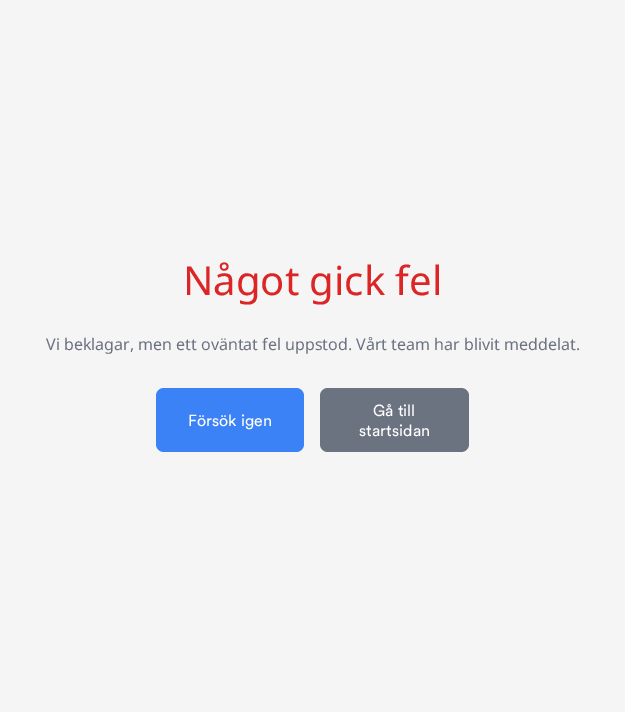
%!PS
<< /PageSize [625 712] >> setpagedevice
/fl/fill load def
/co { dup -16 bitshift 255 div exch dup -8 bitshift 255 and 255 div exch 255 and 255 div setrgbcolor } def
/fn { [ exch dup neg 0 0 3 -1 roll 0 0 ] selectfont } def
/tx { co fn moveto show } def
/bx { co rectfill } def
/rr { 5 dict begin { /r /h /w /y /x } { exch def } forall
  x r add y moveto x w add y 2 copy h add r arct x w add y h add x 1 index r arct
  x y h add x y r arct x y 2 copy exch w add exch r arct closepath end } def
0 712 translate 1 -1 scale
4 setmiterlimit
0 0 625 712 16#F5F5F5 bx
16#3B82F6 co
156 388 148 64 8 rr fl
16#6B7280 co
320 388 149 64 8 rr fl
(Något gick fel) 183 295 /NotoSans-Regular 40 16#DC2626 tx
(Vi beklagar, men ett oväntat fel uppstod. Vårt team har blivit meddelat.) 46 350 /NotoSans-Regular 16 16#6B7280 tx
(Försök igen) 188 426 /Circular-Regular 16 16#FFFFFF tx
(Gå till) 373 416 /Circular-Regular 16 16#FFFFFF tx
(startsidan) 359 436 /Circular-Regular 16 16#FFFFFF tx
showpage
